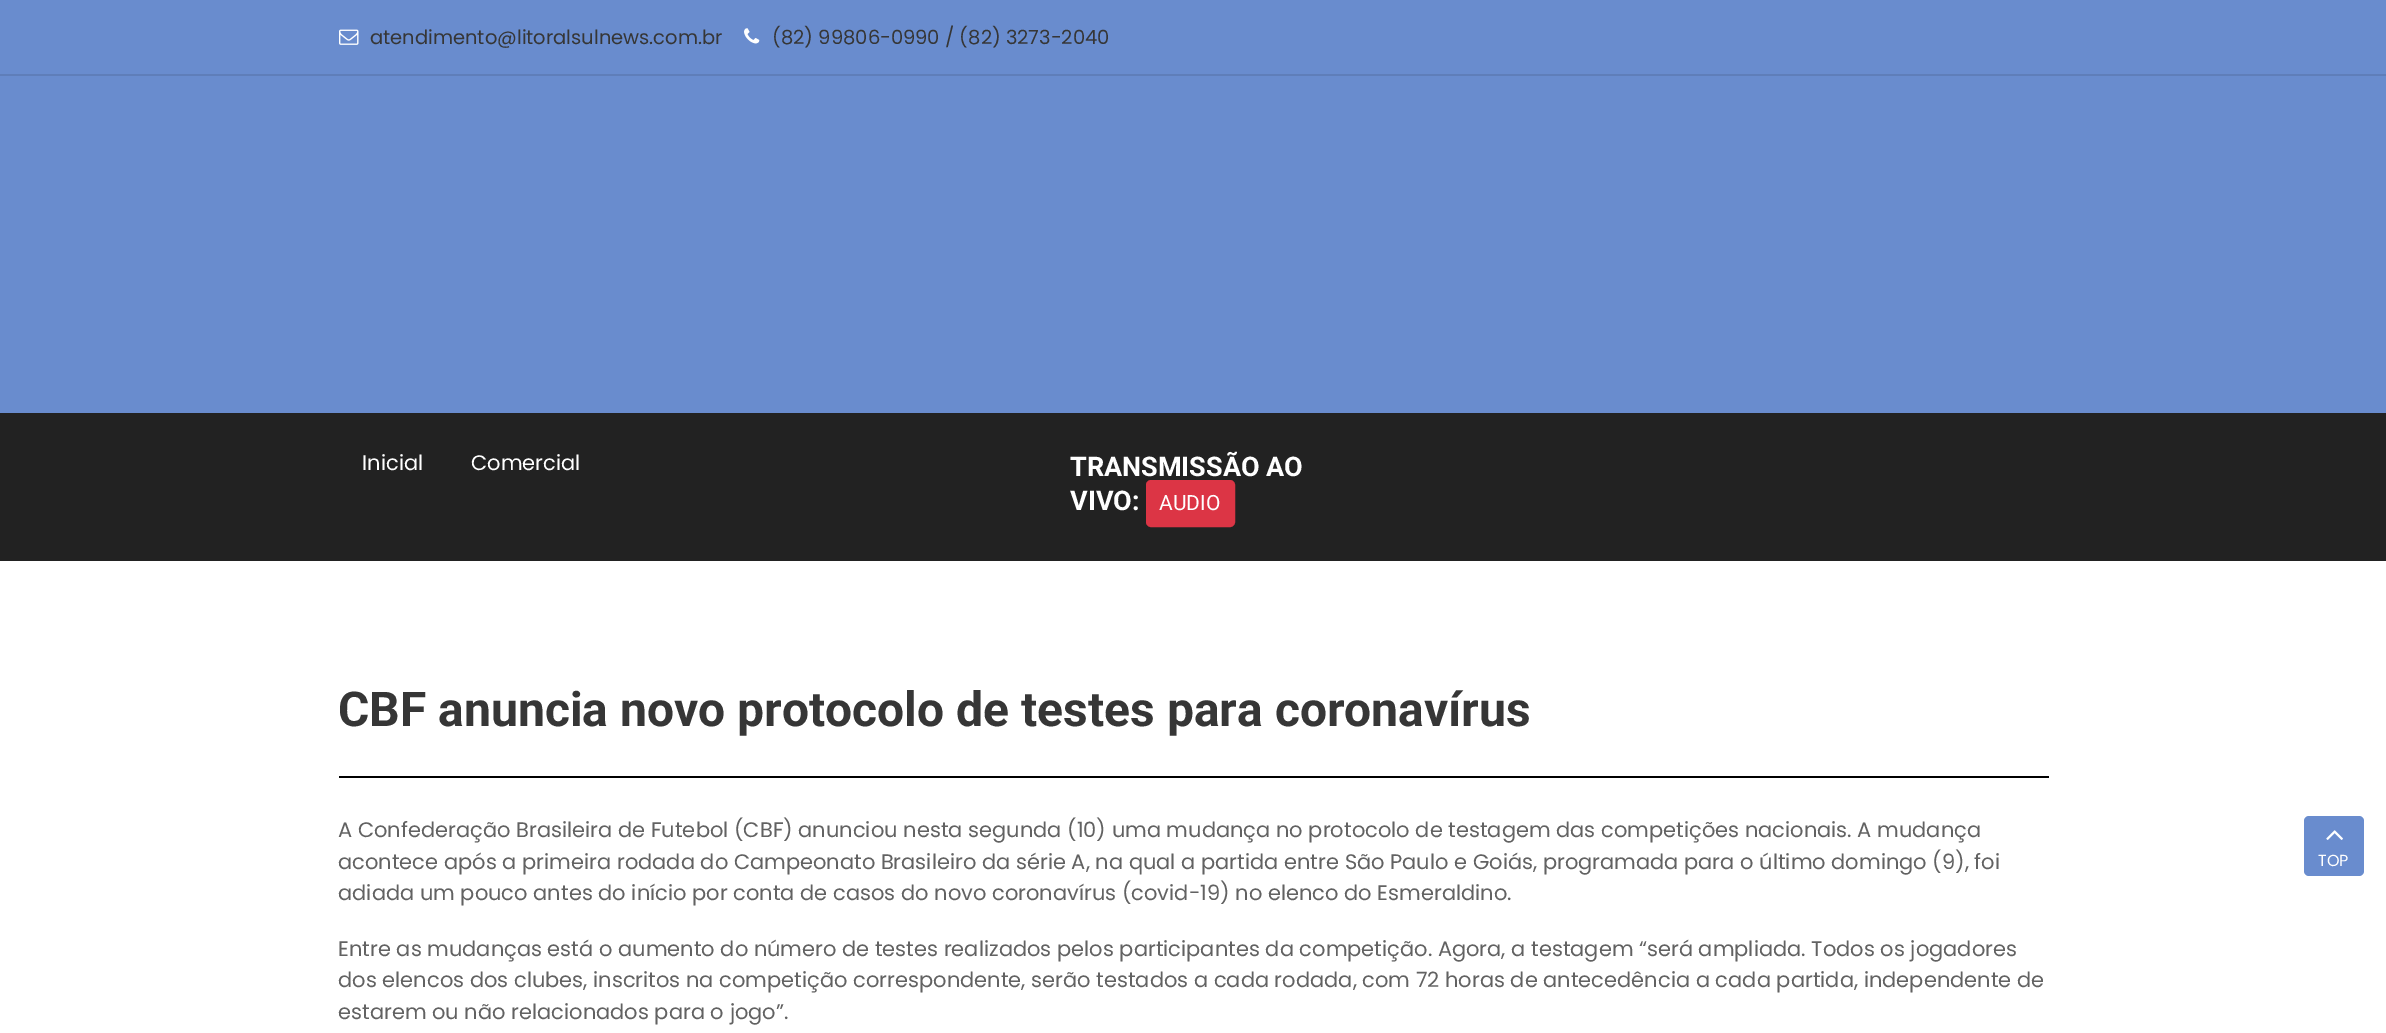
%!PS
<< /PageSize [2386 1033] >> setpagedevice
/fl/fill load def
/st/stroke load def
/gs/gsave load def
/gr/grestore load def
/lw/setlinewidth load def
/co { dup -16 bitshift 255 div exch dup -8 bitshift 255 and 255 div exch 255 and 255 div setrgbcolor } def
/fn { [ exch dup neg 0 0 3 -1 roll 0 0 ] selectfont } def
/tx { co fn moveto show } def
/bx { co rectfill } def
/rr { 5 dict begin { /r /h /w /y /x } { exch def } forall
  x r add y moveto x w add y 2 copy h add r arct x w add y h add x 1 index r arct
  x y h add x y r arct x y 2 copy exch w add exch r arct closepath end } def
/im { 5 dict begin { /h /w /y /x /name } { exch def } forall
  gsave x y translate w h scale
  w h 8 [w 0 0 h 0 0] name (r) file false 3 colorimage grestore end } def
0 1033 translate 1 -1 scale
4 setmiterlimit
0 0 2386 1033 16#FFFFFF bx
0 0 2386 413 16#698CCE bx
0 74 2386 2 16#5F7EB9 bx
(media/1.raw) 339 29 20 16 im
(media/2.raw) 744 28 16 16 im
0 413 2386 148 16#222222 bx
16#DC3545 co
1147 481 87 45 4 rr gs fl gr
2 lw
st
339 776 1710 2 16#000000 bx
16#698CCE co
2304 816 60 60 5 rr fl
(media/3.raw) 2326 830 17 10 im
(atendimento@litoralsulnews.com.br) 370 44 /Poppins-Regular 19.5 16#363636 tx
(\(82\) 99806-0990 / \(82\) 3273-2040) 772 44 /Poppins-Regular 19.5 16#363636 tx
(Inicial) 362 470 /Poppins-Regular 21 16#FFFFFF tx
(Comercial) 471 470 /Poppins-Regular 21 16#FFFFFF tx
(TRANSMISSÃO AO) 1070 476 /Roboto-Bold 27 16#FFFFFF tx
(VIVO:) 1070 510 /Roboto-Bold 27 16#FFFFFF tx
(AUDIO) 1159 510 /Roboto-Regular 21 16#FFFFFF tx
(CBF anuncia novo protocolo de testes para coronavírus) 338 726 /Roboto-Bold 48 16#363636 tx
(A Confederação Brasileira de Futebol \(CBF\) anunciou nesta segunda \(10\) uma mudança no protocolo de testagem das competições nacionais. A mudança) 338 837 /Poppins-Regular 21 16#626262 tx
(acontece após a primeira rodada do Campeonato Brasileiro da série A, na qual a partida entre São Paulo e Goiás, programada para o último domingo \(9\), foi) 338 869 /Poppins-Regular 21 16#626262 tx
(adiada um pouco antes do início por conta de casos do novo coronavírus \(covid-19\) no elenco do Esmeraldino.) 338 900 /Poppins-Regular 21 16#626262 tx
(Entre as mudanças está o aumento do número de testes realizados pelos participantes da competição. Agora, a testagem “será ampliada. Todos os jogadores) 338 956 /Poppins-Regular 21 16#626262 tx
(dos elencos dos clubes, inscritos na competição correspondente, serão testados a cada rodada, com 72 horas de antecedência a cada partida, independente de) 338 987 /Poppins-Regular 21 16#626262 tx
(estarem ou não relacionados para o jogo”.) 338 1019 /Poppins-Regular 21 16#626262 tx
(TOP) 2318 866 /Poppins-Regular 16 16#FFFFFF tx
showpage
